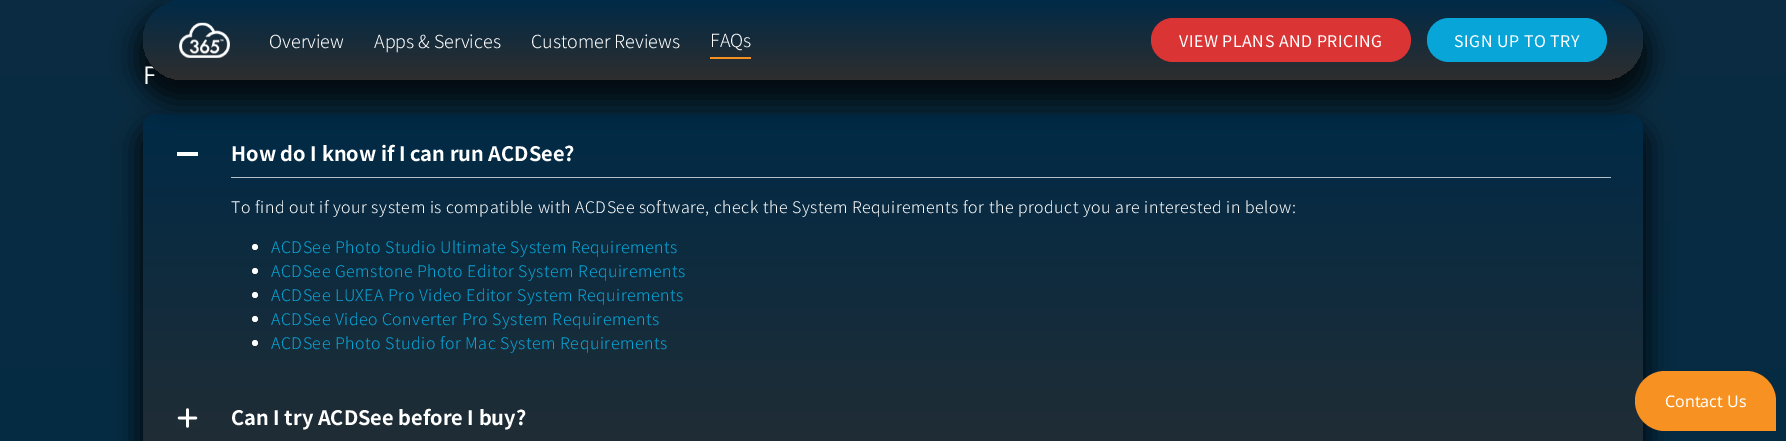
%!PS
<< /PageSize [1786 441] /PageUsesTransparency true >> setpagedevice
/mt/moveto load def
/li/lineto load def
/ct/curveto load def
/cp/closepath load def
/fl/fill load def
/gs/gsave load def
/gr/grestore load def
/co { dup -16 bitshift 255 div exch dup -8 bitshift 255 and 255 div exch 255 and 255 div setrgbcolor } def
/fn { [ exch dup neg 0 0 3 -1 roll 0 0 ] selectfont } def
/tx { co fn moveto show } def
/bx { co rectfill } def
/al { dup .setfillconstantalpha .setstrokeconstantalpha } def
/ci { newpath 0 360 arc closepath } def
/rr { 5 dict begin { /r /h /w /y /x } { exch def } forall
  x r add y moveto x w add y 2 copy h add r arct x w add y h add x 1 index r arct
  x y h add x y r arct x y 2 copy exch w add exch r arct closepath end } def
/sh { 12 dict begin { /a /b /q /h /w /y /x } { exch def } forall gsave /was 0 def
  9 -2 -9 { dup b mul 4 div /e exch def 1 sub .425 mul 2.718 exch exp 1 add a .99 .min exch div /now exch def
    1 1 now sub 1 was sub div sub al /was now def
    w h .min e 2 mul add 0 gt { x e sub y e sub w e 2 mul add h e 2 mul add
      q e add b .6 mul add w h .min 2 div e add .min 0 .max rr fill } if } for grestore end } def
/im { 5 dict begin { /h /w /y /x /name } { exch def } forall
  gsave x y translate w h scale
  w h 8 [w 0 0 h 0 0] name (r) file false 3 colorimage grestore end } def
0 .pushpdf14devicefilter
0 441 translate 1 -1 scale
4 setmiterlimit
0 0 1786 441 16#FFFFFF bx
gs 0 0 mt 1786 0 li 1786 441 li 0 441 li cp clip newpath
<< /ShadingType 2 /ColorSpace /DeviceRGB /Coords [893 -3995 893 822] /Extend [true true] /Function << /FunctionType 3 /Domain [0 1] /Functions [<< /FunctionType 2 /Domain [0 1] /C0 [.18 .18 .18] /C1 [.18 .18 .18] /N 1 >> << /FunctionType 2 /Domain [0 1] /C0 [.18 .18 .18] /C1 [0 .165 .278] /N 1 >>] /Bounds [.3] /Encode [0 1 0 1] >> >> shfill gr
16#000000 co
137 124 1512 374 21 12 .75 sh
gs 143 114 1500 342 15 rr clip newpath
<< /ShadingType 2 /ColorSpace /DeviceRGB /Coords [893 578 893 114] /Extend [true true] /Function << /FunctionType 2 /Domain [0 1] /C0 [.18 .18 .18] /C1 [0 .165 .278] /N 1 >> >> shfill gr
136 9 1514 94 47 12 .75 sh
177 152 21 4 16#FFFFFF bx
231 177 1380 1 16#B4BFC7 bx
16#FFFFFF co
255 247 3 ci fl
255 271 3 ci fl
255 295 3 ci fl
255 319 3 ci fl
255 343 3 ci fl
(media/2.raw) 177 408 21 20 im
16#F79121 co
1665 371 mt 1746 371 li 1762.5 371 1776 384.5 1776 401 ct 1776 431 li 1665 431 li 1648.5 431 1635 417.5 1635 401 ct 1635 384.5 1648.5 371 1665 371 ct cp fl
(F) 143 84 /NotoSansJP-Regular 24 16#FFFFFF tx
gs 143 0 1500 80 40 rr clip newpath
<< /ShadingType 2 /ColorSpace /DeviceRGB /Coords [893 80 893 0] /Extend [true true] /Function << /FunctionType 2 /Domain [0 1] /C0 [.18 .18 .18] /C1 [0 .165 .278] /N 1 >> >> shfill gr
16#07A5D8 co
1427 18 180 44 22 rr fl
/NotoSansJP-Regular 16 fn
16#FFFFFF co
1454 47 mt .5 0 (SIGN UP TO TRY) ashow
16#DA3434 co
1151 18 260 44 22 rr fl
16#FFFFFF co
1179 47 mt .5 0 (VIEW PLANS AND PRICING) ashow
(FAQs) 710 47 /NotoSansJP-Light 18 16#FFFFFF tx
710 57 41 2 16#F69120 bx
(Customer Reviews) 531 48 /NotoSansJP-Light 18 16#FFFFFF tx
(Apps & Services) 374 48 /NotoSansJP-Light 18 16#FFFFFF tx
(Overview) 269 48 /NotoSansJP-Light 18 16#FFFFFF tx
(media/1.raw) 179 22 51 36 im
(How do I know if I can run ACDSee?) 231 161 /NotoSansJP-Bold 20 16#FFFFFF tx
/NotoSansJP-Light 16 fn
231 213 mt .5 0 (To find out if your system is compatible with ACDSee software, check the System Requirements for the product you are interested in below:) ashow
16#07A5D8 co
271 253 mt .5 0 (ACDSee Photo Studio Ultimate System Requirements) ashow
271 277 mt .5 0 (ACDSee Gemstone Photo Editor System Requirements) ashow
271 301 mt .5 0 (ACDSee LUXEA Pro Video Editor System Requirements) ashow
271 325 mt .5 0 (ACDSee Video Converter Pro System Requirements) ashow
271 349 mt .5 0 (ACDSee Photo Studio for Mac System Requirements) ashow
(Can I try ACDSee before I buy?) 231 425 /NotoSansJP-Bold 20 16#FFFFFF tx
(Contact Us) 1665 407 /NotoSans-Regular 16 16#FFFFFF tx
.poppdf14devicefilter showpage
